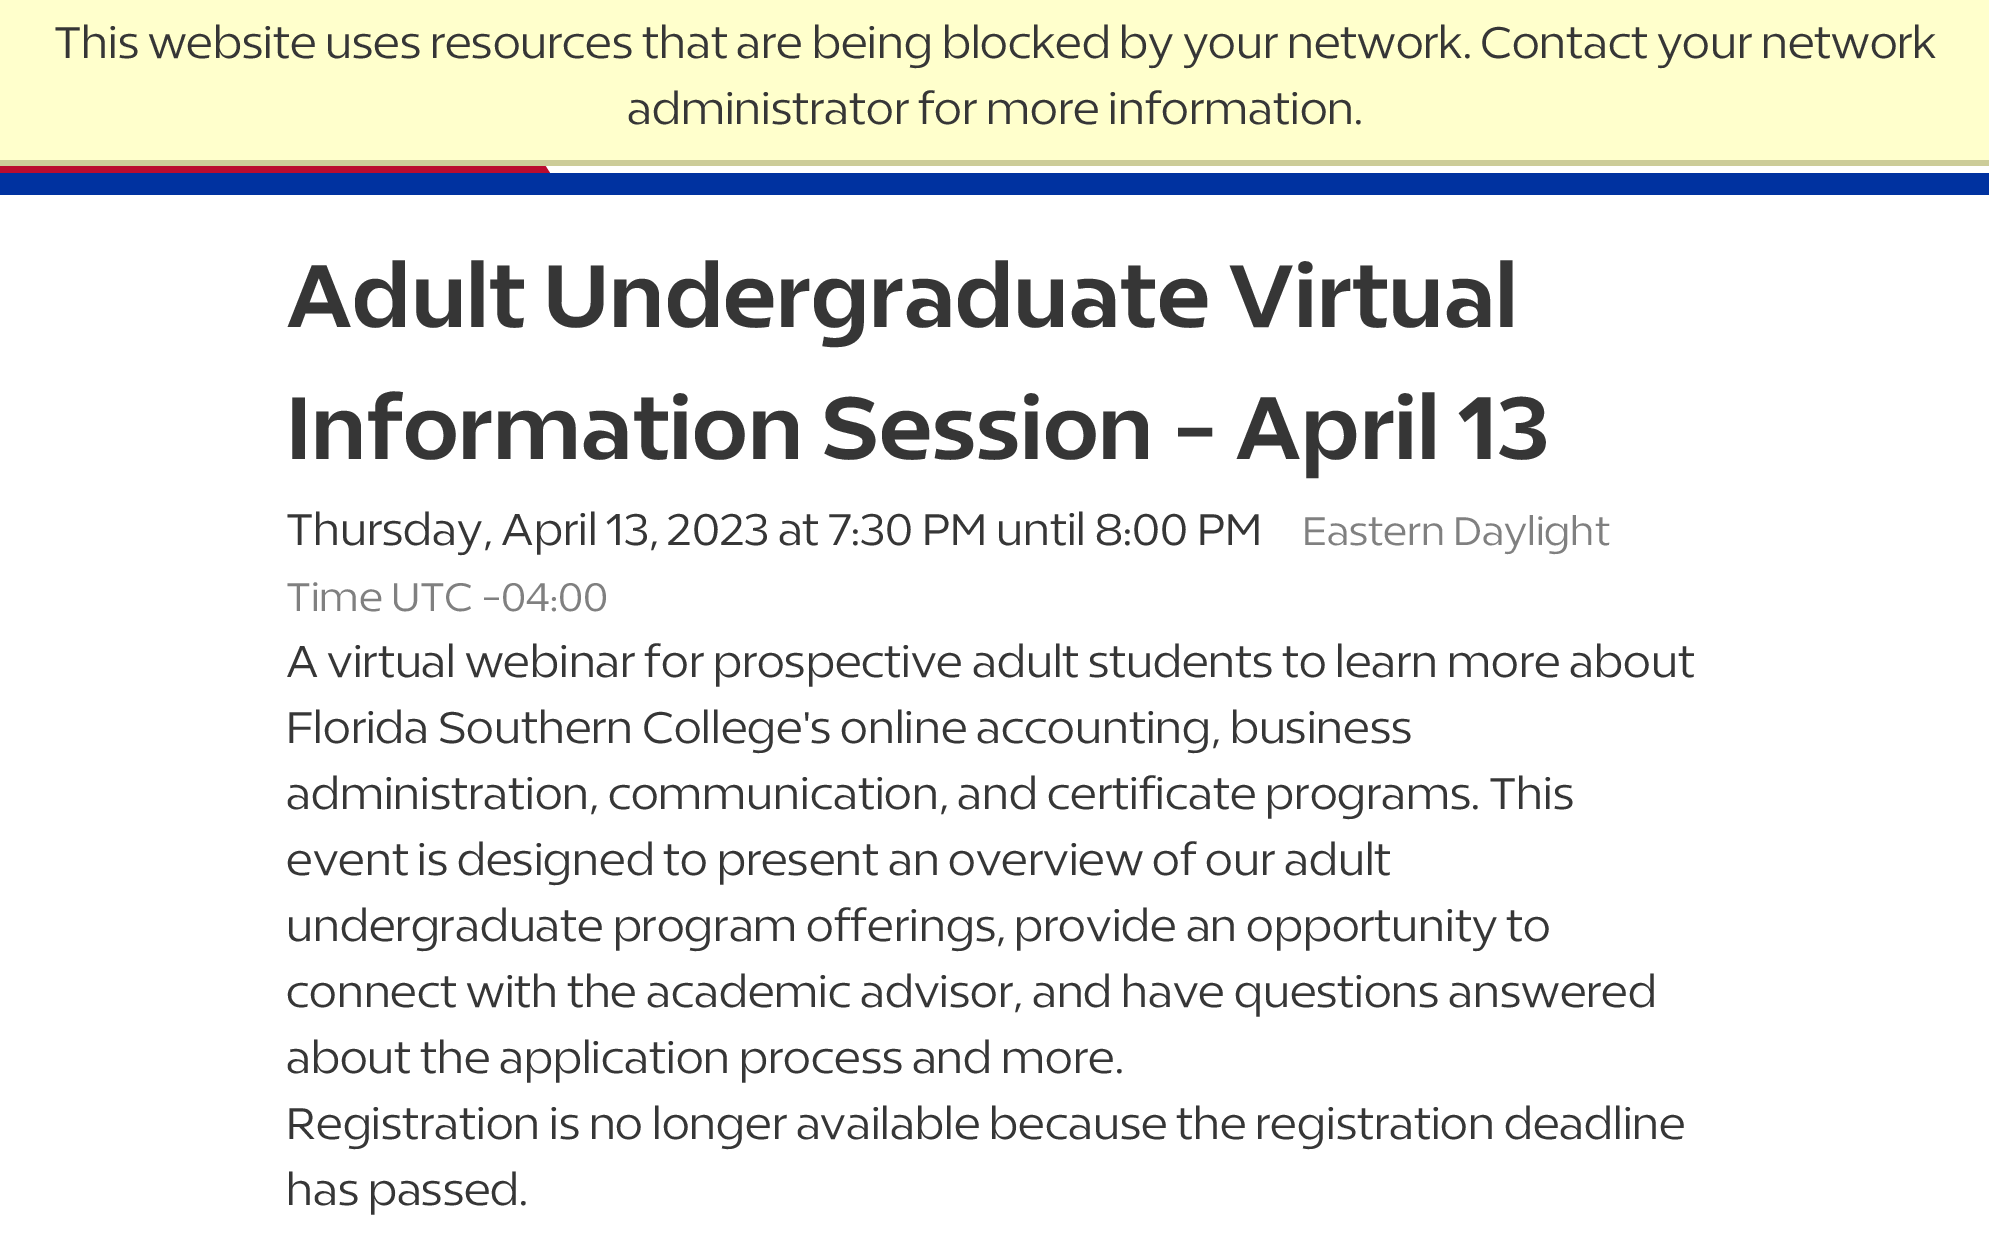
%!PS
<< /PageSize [1989 1233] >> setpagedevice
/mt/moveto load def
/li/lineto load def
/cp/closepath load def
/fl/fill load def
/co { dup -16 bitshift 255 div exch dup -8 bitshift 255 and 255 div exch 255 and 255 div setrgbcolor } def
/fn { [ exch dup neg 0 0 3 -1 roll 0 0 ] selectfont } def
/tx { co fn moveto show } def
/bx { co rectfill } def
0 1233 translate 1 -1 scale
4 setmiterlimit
0 0 1989 1233 16#FFFFFF bx
16#BA0C2F co
0 0 mt 0 173 li 550 173 li 440 0 li cp fl
0 0 1989 160 16#FFFFCC bx
0 160 1989 6 16#CCCC99 bx
0 173 1989 22 16#0032A0 bx
(This website uses resources that are being blocked by your network. Contact your network) 54 58 /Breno-Regular 44 16#363636 tx
(administrator for more information.) 627 124 /Breno-Regular 44 16#363636 tx
(Adult Undergraduate Virtual) 286 327 /Breno-Bold 88 16#363636 tx
(Information Session - April 13) 286 459 /Breno-Bold 88 16#363636 tx
(Thursday, April 13, 2023 at 7:30 PM until 8:00 PM) 286 545 /Breno-Regular 44 16#363636 tx
(Eastern Daylight) 1302 545 /Breno-Regular 39.5 16#808080 tx
(Time UTC -04:00) 286 611 /Breno-Regular 39.5 16#808080 tx
(A virtual webinar for prospective adult students to learn more about) 286 677 /Breno-Regular 44 16#363636 tx
(Florida Southern College's online accounting, business) 286 743 /Breno-Regular 44 16#363636 tx
(administration, communication, and certificate programs. This) 286 809 /Breno-Regular 44 16#363636 tx
(event is designed to present an overview of our adult) 286 875 /Breno-Regular 44 16#363636 tx
(undergraduate program offerings, provide an opportunity to) 286 941 /Breno-Regular 44 16#363636 tx
(connect with the academic advisor, and have questions answered) 286 1007 /Breno-Regular 44 16#363636 tx
(about the application process and more.) 286 1073 /Breno-Regular 44 16#363636 tx
(Registration is no longer available because the registration deadline) 286 1139 /Breno-Regular 44 16#363636 tx
(has passed.) 286 1205 /Breno-Regular 44 16#363636 tx
showpage
